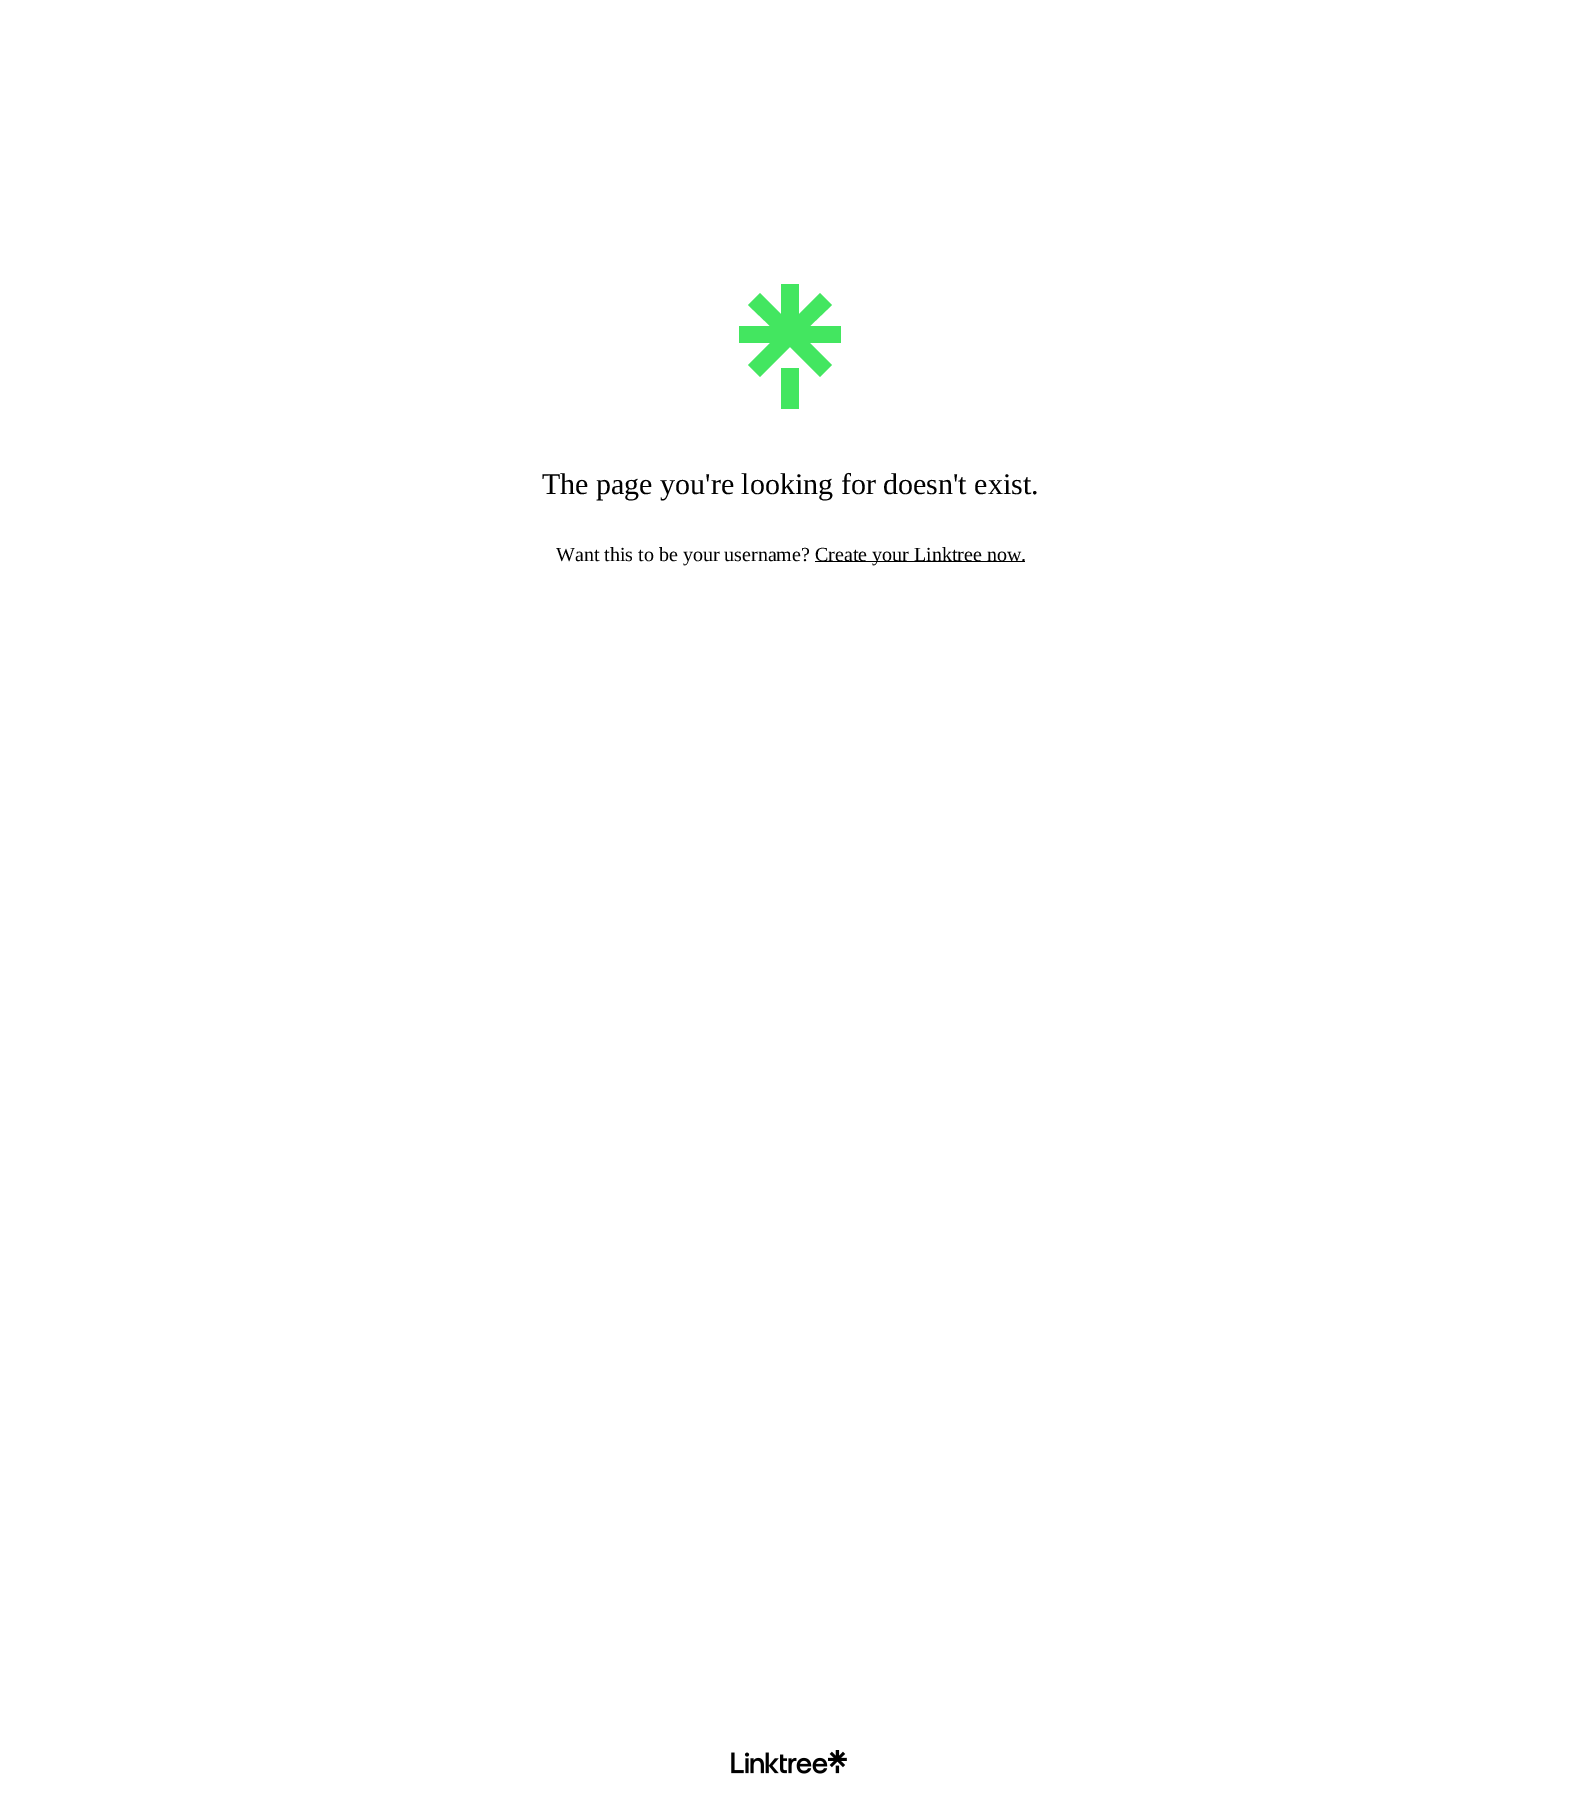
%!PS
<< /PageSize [1581 1805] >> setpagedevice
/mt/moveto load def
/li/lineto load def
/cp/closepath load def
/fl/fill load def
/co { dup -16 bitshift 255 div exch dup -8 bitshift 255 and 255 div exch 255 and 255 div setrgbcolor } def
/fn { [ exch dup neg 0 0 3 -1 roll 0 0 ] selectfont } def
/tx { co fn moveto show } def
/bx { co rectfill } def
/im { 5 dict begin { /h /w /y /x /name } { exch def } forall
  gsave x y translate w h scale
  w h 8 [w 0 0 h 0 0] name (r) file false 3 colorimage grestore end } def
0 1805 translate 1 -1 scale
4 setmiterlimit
0 0 1581 1805 16#FFFFFF bx
16#43E660 co
799 314 mt 820 293 li 832 305 li 810 326 li 841 326 li 841 343 li 810 343 li 832 365 li 820 377 li 790 347 li 760 377 li 748 365 li 770 343 li 739 343 li 739 326 li 770 326 li 748 305 li 760 293 li 781 314 li 781 284 li 799 284 li cp 781 368 mt 799 368 li 799 409 li 781 409 li cp fl
815 561 210 1 16#000000 bx
(media/1.raw) 731 1750 116 24 im
(The page you're looking for doesn't exist.) 542 494 /LiberationSerif-Regular 30 16#000000 tx
(Want this to be your username?) 556 561 /LiberationSerif-Regular 20 16#000000 tx
(Create your Linktree now.) 815 561 /LiberationSerif-Regular 20 16#000000 tx
showpage
